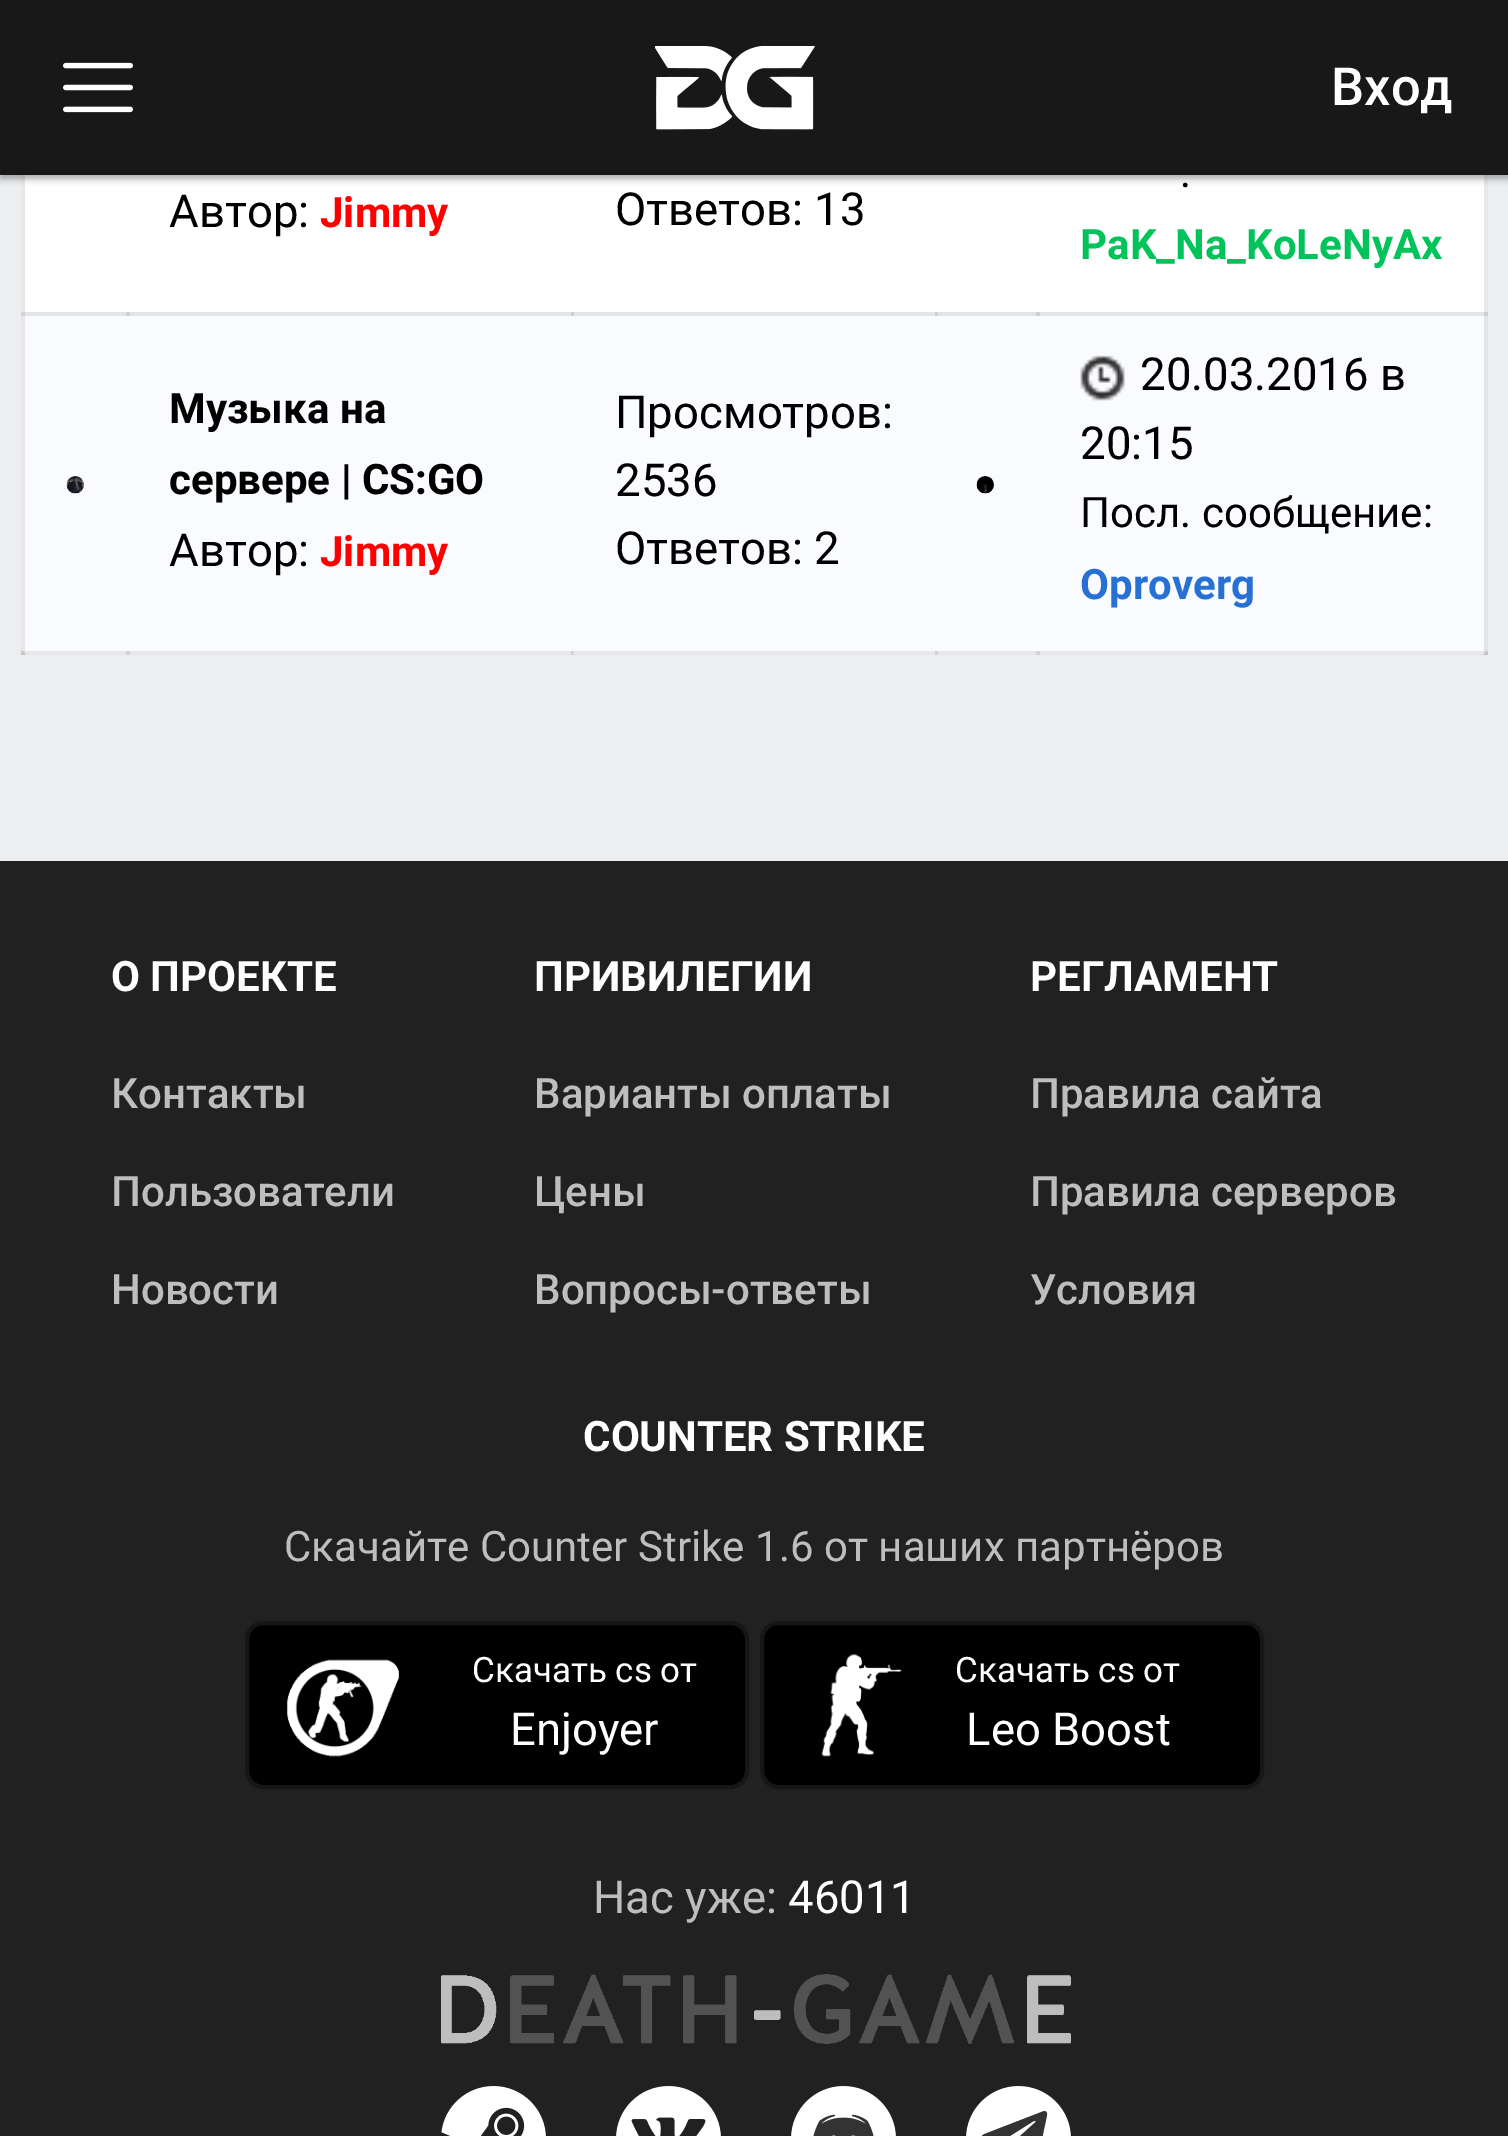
%!PS
<< /PageSize [1508 2136] /PageUsesTransparency true >> setpagedevice
/fl/fill load def
/st/stroke load def
/gs/gsave load def
/gr/grestore load def
/lw/setlinewidth load def
/co { dup -16 bitshift 255 div exch dup -8 bitshift 255 and 255 div exch 255 and 255 div setrgbcolor } def
/fn { [ exch dup neg 0 0 3 -1 roll 0 0 ] selectfont } def
/tx { co fn moveto show } def
/bx { co rectfill } def
/al { dup .setfillconstantalpha .setstrokeconstantalpha } def
/rr { 5 dict begin { /r /h /w /y /x } { exch def } forall
  x r add y moveto x w add y 2 copy h add r arct x w add y h add x 1 index r arct
  x y h add x y r arct x y 2 copy exch w add exch r arct closepath end } def
/sh { 12 dict begin { /a /b /q /h /w /y /x } { exch def } forall gsave /was 0 def
  9 -2 -9 { dup b mul 4 div /e exch def 1 sub .425 mul 2.718 exch exp 1 add a .99 .min exch div /now exch def
    1 1 now sub 1 was sub div sub al /was now def
    w h .min e 2 mul add 0 gt { x e sub y e sub w e 2 mul add h e 2 mul add
      q e add b .6 mul add w h .min 2 div e add .min 0 .max rr fill } if } for grestore end } def
/im { 5 dict begin { /h /w /y /x /name } { exch def } forall
  gsave x y translate w h scale
  w h 8 [w 0 0 h 0 0] name (r) file false 3 colorimage grestore end } def
0 .pushpdf14devicefilter
0 2136 translate 1 -1 scale
4 setmiterlimit
0 0 1508 2136 16#EDEEF0 bx
16#FFFFFF co
21 -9 1467 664 9 rr fl
25 312 1463 339 16#FAFBFF bx
0.09 al
1484 175 4 480 16#000000 bx
21 175 4 480 16#000000 bx
1 al
16#323232 co
0 4 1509 175 0 3.5 .4 sh
0 0 1508 175 16#181818 bx
(media/1.raw) 63 62 70 51 im
(media/2.raw) 655 46 160 84 im
0.09 al
1036 312 452 4 16#000000 bx
935 312 105 4 16#000000 bx
571 312 367 4 16#000000 bx
126 312 448 4 16#000000 bx
21 312 109 4 16#000000 bx
1036 651 452 4 16#000000 bx
935 651 105 4 16#000000 bx
571 651 367 4 16#000000 bx
126 651 448 4 16#000000 bx
21 651 109 4 16#000000 bx
1 al
(media/3.raw) 66 476 18 18 im
(media/4.raw) 976 476 18 18 im
(media/5.raw) 1080 355 45 46 im
0 861 1508 1275 16#212121 bx
16#000000 co
247 1623 500 164 16 rr gs fl gr
16#161616 co
4 lw
st
(media/6.raw) 287 1659 112 98 im
16#000000 co
762 1623 500 164 16 rr gs fl gr
16#161616 co
st
(media/7.raw) 821 1654 81 103 im
(media/8.raw) 441 1974 630 70 im
(media/9.raw) 441 2086 105 50 im
(media/10.raw) 616 2086 105 50 im
(media/11.raw) 791 2086 105 50 im
(media/12.raw) 966 2086 105 50 im
(Вход) 1331 105 /Roboto-Medium 52.5 16#FFFFFF tx
(Автор:) 169 227 /Roboto-Regular 45.5 16#000000 tx
(Jimmy) 320 227 /Roboto-Bold 42 16#FF0000 tx
(Ответов: 13) 615 225 /Roboto-Regular 45.5 16#000000 tx
(.) 1180 187 /Roboto-Regular 42 16#000000 tx
(PaK_Na_KoLeNyAx) 1080 259 /Roboto-Bold 42 16#00C359 tx
(Музыка на) 169 423 /Roboto-Bold 42 16#000000 tx
(сервере | CS:GO) 169 494 /Roboto-Bold 42 16#000000 tx
(Автор:) 169 566 /Roboto-Regular 45.5 16#000000 tx
(Jimmy) 320 566 /Roboto-Bold 42 16#FF0000 tx
(Просмотров:) 615 428 /Roboto-Regular 45.5 16#000000 tx
(2536) 615 496 /Roboto-Regular 45.5 16#000000 tx
(Ответов: 2) 615 564 /Roboto-Regular 45.5 16#000000 tx
(20.03.2016 в) 1140 390 /Roboto-Regular 45.5 16#000000 tx
(20:15) 1080 459 /Roboto-Regular 45.5 16#000000 tx
(Посл. сообщение:) 1080 527 /Roboto-Regular 42 16#000000 tx
(Oproverg) 1080 599 /Roboto-Bold 42 16#2771D4 tx
(О ПРОЕКТЕ) 111 991 /Roboto-Bold 42 16#FFFFFF tx
(Контакты) 111 1108 /Roboto-Medium 42 16#BEBEBE tx
(Пользователи) 111 1206 /Roboto-Medium 42 16#BEBEBE tx
(Новости) 111 1304 /Roboto-Medium 42 16#BEBEBE tx
(ПРИВИЛЕГИИ) 534 991 /Roboto-Bold 42 16#FFFFFF tx
(Варианты оплаты) 534 1108 /Roboto-Medium 42 16#BEBEBE tx
(Цены) 534 1206 /Roboto-Medium 42 16#BEBEBE tx
(Вопросы-ответы) 534 1304 /Roboto-Medium 42 16#BEBEBE tx
(РЕГЛАМЕНТ) 1030 991 /Roboto-Bold 42 16#FFFFFF tx
(Правила сайта) 1030 1108 /Roboto-Medium 42 16#BEBEBE tx
(Правила серверов) 1030 1206 /Roboto-Medium 42 16#BEBEBE tx
(Условия) 1030 1304 /Roboto-Medium 42 16#BEBEBE tx
(COUNTER STRIKE) 583 1451 /Roboto-Bold 42 16#FFFFFF tx
(Скачайте Counter Strike 1.6 от наших партнёров) 284 1561 /Roboto-Regular 42 16#BEBEBE tx
(Скачать cs от) 472 1682 /Roboto-Regular 35 16#FFFFFF tx
(Enjoyer) 510 1745 /Roboto-Regular 45.5 16#FFFFFF tx
(Скачать cs от) 955 1682 /Roboto-Regular 35 16#FFFFFF tx
(Leo Boost) 966 1745 /Roboto-Regular 45.5 16#FFFFFF tx
(Нас уже:) 593 1913 /Roboto-Regular 45.5 16#BEBEBE tx
(46011) 788 1913 /Roboto-Regular 45.5 16#FFFFFF tx
.poppdf14devicefilter showpage
